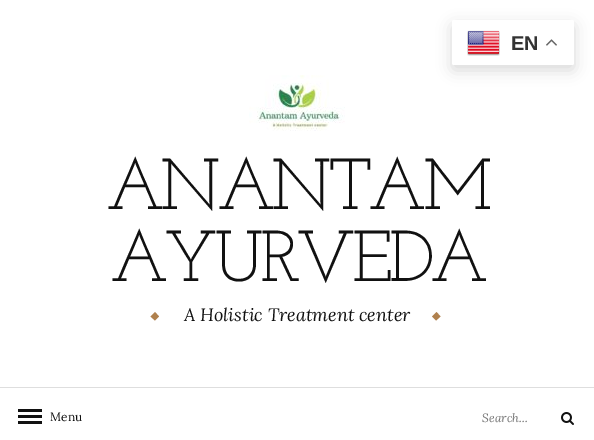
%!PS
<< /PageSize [594 440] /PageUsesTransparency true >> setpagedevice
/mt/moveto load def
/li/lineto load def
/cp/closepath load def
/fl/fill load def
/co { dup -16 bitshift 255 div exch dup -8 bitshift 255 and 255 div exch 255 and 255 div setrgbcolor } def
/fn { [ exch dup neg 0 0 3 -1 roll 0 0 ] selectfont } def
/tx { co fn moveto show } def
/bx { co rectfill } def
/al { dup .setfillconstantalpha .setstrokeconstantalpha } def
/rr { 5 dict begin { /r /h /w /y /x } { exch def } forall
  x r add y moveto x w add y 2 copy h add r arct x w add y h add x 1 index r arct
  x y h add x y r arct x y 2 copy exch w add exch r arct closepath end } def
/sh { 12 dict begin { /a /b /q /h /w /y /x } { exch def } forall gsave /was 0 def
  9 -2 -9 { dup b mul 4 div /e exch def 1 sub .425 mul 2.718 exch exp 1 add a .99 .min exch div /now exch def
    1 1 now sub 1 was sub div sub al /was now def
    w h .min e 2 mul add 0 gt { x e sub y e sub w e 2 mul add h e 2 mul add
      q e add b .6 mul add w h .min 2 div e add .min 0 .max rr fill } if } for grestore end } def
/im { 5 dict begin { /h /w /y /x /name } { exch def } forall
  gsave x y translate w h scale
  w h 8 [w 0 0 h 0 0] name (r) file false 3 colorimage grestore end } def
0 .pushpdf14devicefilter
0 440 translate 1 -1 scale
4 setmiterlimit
0 0 594 440 16#FFFFFF bx
16#000000 co
452 25 122 45 2 7.5 .15 sh
16#FFFFFF co
452 20 122 45 2 rr fl
(media/1.raw) 467 30 33 26 im
(media/2.raw) 546 39 11 7 im
(media/3.raw) 249 75 96 56 im
16#B0814E co
155 312 mt 159 316.5 li 155 320.5 li 150.5 316.5 li cp fl
436.5 312 mt 440.5 316.5 li 436 320.5 li 432 316.5 li cp fl
0 387 594 1 16#DEDEDE bx
18 409 24 3 16#111111 bx
18 415 24 3 16#111111 bx
18 421 24 3 16#111111 bx
(media/4.raw) 561 412 13 13 im
(EN) 511 50 /LiberationSans-Bold 20 16#333333 tx
/JosefinSlab-Thin 72 fn
16#111111 co
106 209 mt -4.25 0 (ANANTAM) ashow
110 281 mt -4.25 0 (AYURVEDA) ashow
(A Holistic Treatment center) 184 321 /Lora-Italic 18 16#111111 tx
(Menu) 50 421 /Lora-Regular 12 16#111111 tx
(Search...) 482 422 /Lora-Italic 12 16#757575 tx
.poppdf14devicefilter showpage
